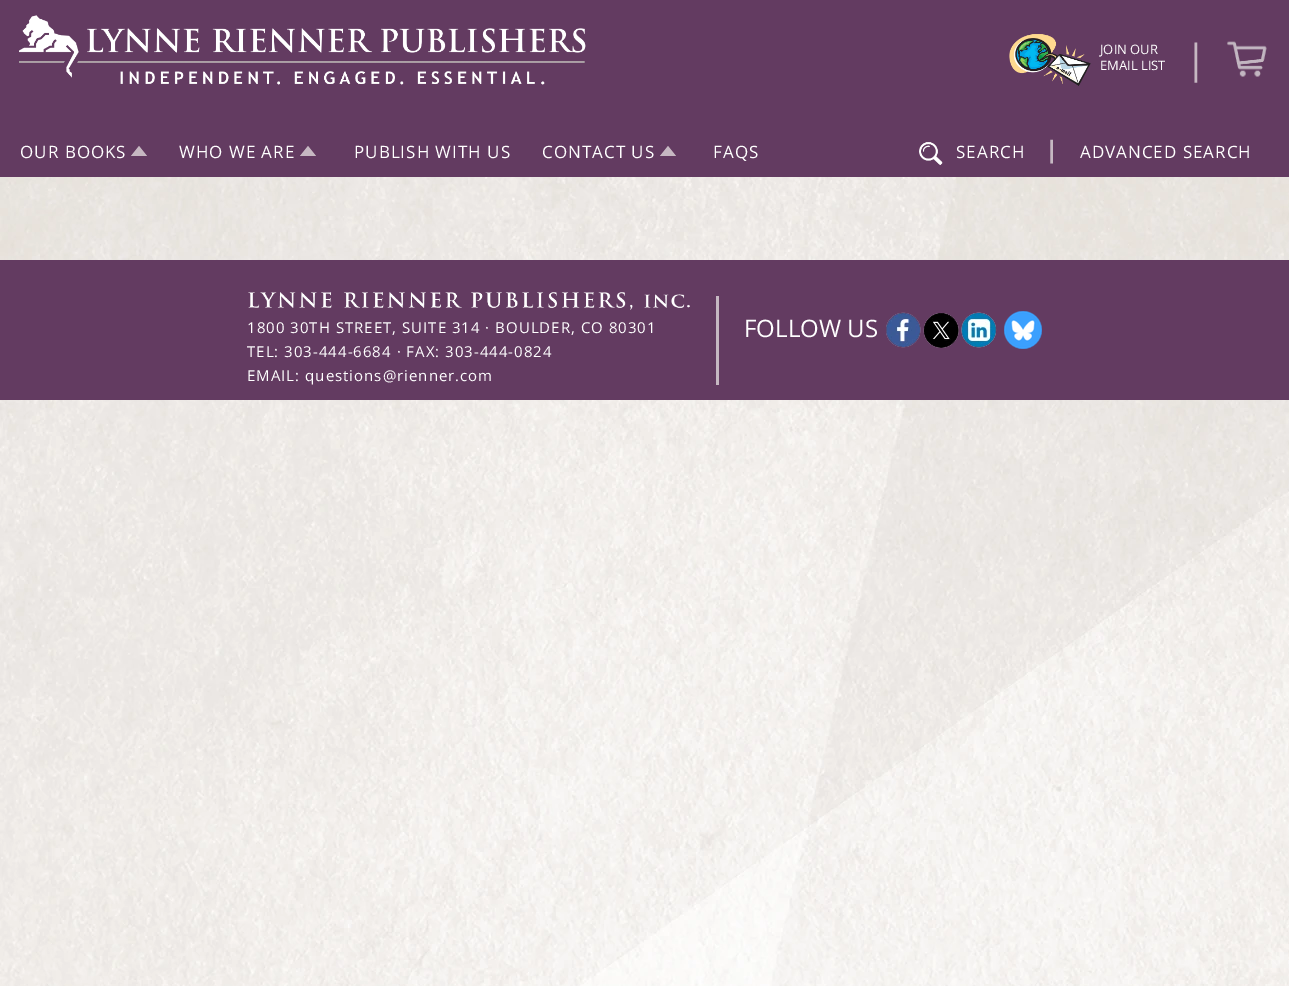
%!PS
<< /PageSize [1289 986] >> setpagedevice
/mt/moveto load def
/li/lineto load def
/cp/closepath load def
/fl/fill load def
/co { dup -16 bitshift 255 div exch dup -8 bitshift 255 and 255 div exch 255 and 255 div setrgbcolor } def
/fn { [ exch dup neg 0 0 3 -1 roll 0 0 ] selectfont } def
/tx { co fn moveto show } def
/bx { co rectfill } def
/im { 5 dict begin { /h /w /y /x /name } { exch def } forall
  gsave x y translate w h scale
  w h 8 [w 0 0 h 0 0] name (r) file false 3 colorimage grestore end } def
0 986 translate 1 -1 scale
4 setmiterlimit
0 0 1289 986 16#FFFFFF bx
(media/1.raw) 0 177 1289 809 im
0 0 1289 177 16#633B61 bx
(media/2.raw) 19 15 567 70 im
(media/3.raw) 1009 34 82 52 im
(media/4.raw) 1227 41 40 36 im
16#C6B8C2 co
147 156 mt 131 156 li 139 146 li cp fl
316 156 mt 300 156 li 308 146 li cp fl
676 156 mt 660 156 li 668 146 li cp fl
(media/5.raw) 919 142 24 23 im
0 260 1289 140 16#633B61 bx
(media/6.raw) 248 292 442 18 im
716 296 3 89 16#C6B8C2 bx
(media/7.raw) 886 312 35 36 im
(media/8.raw) 923 312 36 36 im
(media/9.raw) 961 312 36 36 im
(media/10.raw) 1004 311 38 38 im
(JOIN OUR) 1100 54 /OpenSans-Regular 13 16#FFFFFF tx
(EMAIL LIST) 1100 70 /OpenSans-Regular 13 16#FFFFFF tx
(|) 1185 73 /OpenSans-Regular 40 16#C6B8C2 tx
/OpenSans-Regular 17 fn
16#FFFFFF co
20 158 mt 1 0 (OUR BOOKS) ashow
179 158 mt 1 0 (WHO WE ARE) ashow
354 158 mt 1 0 (PUBLISH WITH US) ashow
542 158 mt 1 0 (CONTACT US) ashow
713 158 mt 1 0 (FAQS) ashow
956 158 mt 1 0 (SEARCH) ashow
/OpenSans-Bold 24 fn
16#C6B8C2 co
1045 158 mt 1 0 (|) ashow
/OpenSans-Regular 17 fn
16#FFFFFF co
1080 158 mt 1 0 (ADVANCED SEARCH) ashow
/OpenSans-Regular 15 fn
247 333 mt 1 0 (1800 30TH STREET, SUITE 314 · BOULDER, CO 80301) ashow
247 357 mt 1 0 (TEL: 303-444-6684 · FAX: 303-444-0824) ashow
247 381 mt 1 0 (EMAIL: questions@rienner.com) ashow
(FOLLOW US) 744 337 /OpenSans-Regular 24 16#FFFFFF tx
showpage
